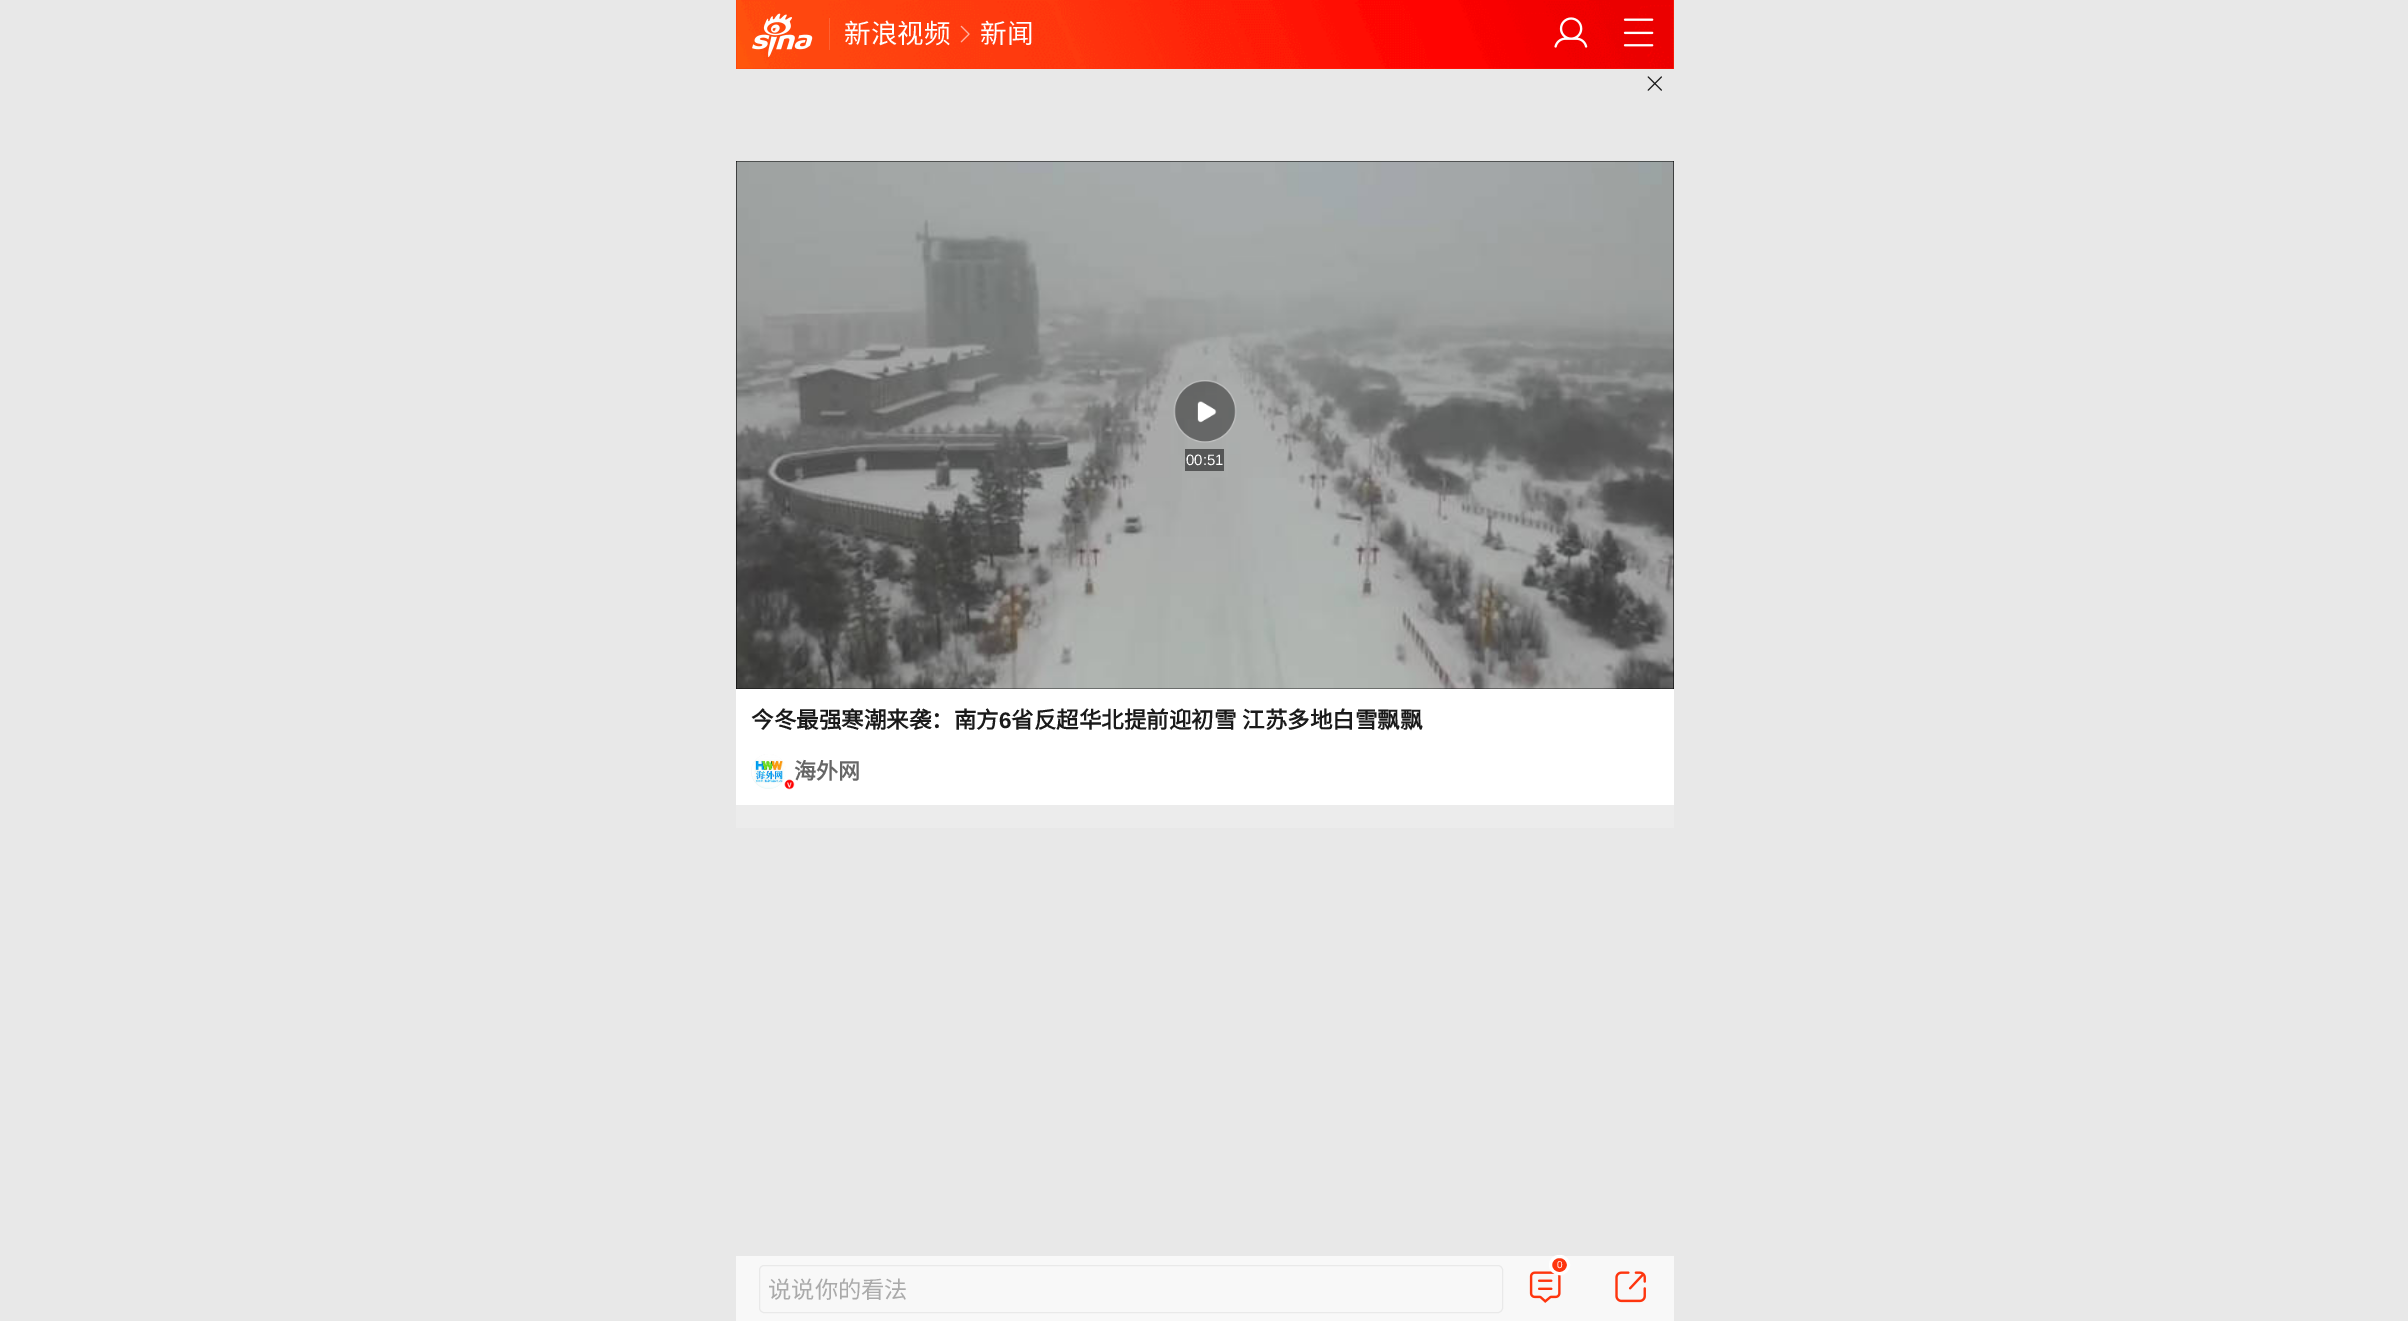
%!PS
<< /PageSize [2408 1321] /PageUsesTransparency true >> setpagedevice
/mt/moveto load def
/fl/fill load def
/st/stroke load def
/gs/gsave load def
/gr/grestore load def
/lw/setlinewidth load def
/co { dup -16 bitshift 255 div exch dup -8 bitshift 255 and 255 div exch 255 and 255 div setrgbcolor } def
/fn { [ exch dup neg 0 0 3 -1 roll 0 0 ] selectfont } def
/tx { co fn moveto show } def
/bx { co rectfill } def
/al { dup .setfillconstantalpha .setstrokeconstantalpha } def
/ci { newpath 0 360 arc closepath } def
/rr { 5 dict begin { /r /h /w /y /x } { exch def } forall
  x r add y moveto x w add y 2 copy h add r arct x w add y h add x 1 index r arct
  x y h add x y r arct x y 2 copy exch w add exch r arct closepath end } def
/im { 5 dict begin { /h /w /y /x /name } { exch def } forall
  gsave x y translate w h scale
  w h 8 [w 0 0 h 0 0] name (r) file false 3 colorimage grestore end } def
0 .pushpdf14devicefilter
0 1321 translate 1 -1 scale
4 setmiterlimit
0 0 2408 1321 16#E8E8E8 bx
736 0 938 69 16#FE350E bx
(media/1.raw) 736 0 938 69 im
(media/2.raw) 752 13 61 45 im
0.15 al
829 18 1 32 16#FFFFFF bx
1 al
(media/3.raw) 960 25 10 18 im
(media/4.raw) 1554 17 34 31 im
(media/5.raw) 1623 18 31 29 im
(media/6.raw) 1647 76 15 15 im
736 689 938 116 16#FFFFFF bx
736 161 938 528 16#000000 bx
(media/7.raw) 736 161 938 528 im
(media/8.raw) 736 161 938 528 im
(media/9.raw) 1173 380 64 63 im
1185 449 39 22 16#555656 bx
16#F2F2F2 co
768.5 771.5 17.5 ci fl
(media/10.raw) 751 754 35 35 im
(media/11.raw) 784 779 11 11 im
736 805 938 23 16#ECECEC bx
736 1256 938 65 16#F8F8F8 bx
(media/12.raw) 1529 1271 32 32 im
16#FE350E co
1550.5 1256.5 18 17 8.5 rr gs fl gr
16#FFFFFF co
3 lw
st
(media/13.raw) 1615 1271 31 32 im
16#E9E9E9 co
1 lw
759.5 1265.5 743 47 4.5 rr st
(新浪视频) 844 43 /NotoSansCJKSC-Regular 26.5 16#FFFFFF tx
(新闻) 980 43 /NotoSansCJKSC-Regular 26.5 16#FFFFFF tx
(00:51) 1186 465 /LiberationSans-Regular 15 16#FFFFFF tx
(今冬最强寒潮来袭：南方) 751 728 /NotoSansCJKSC-Bold 22.5 16#1A1A1A tx
(6) 999 728 /LiberationSans-Bold 22.5 16#1A1A1A tx
/NotoSansCJKSC-Bold 22.5 fn
1011 728 mt 1 0 32 (省反超华北提前迎初雪 江苏多地白雪飘飘) widthshow
(海外网) 794 779 /NotoSansCJKSC-Bold 22 16#666666 tx
(0) 1557 1268 /LiberationSans-Regular 10 16#FFFFFF tx
(说说你的看法) 768 1298 /NotoSansCJKSC-Regular 23.25 16#AAAAAA tx
.poppdf14devicefilter showpage
